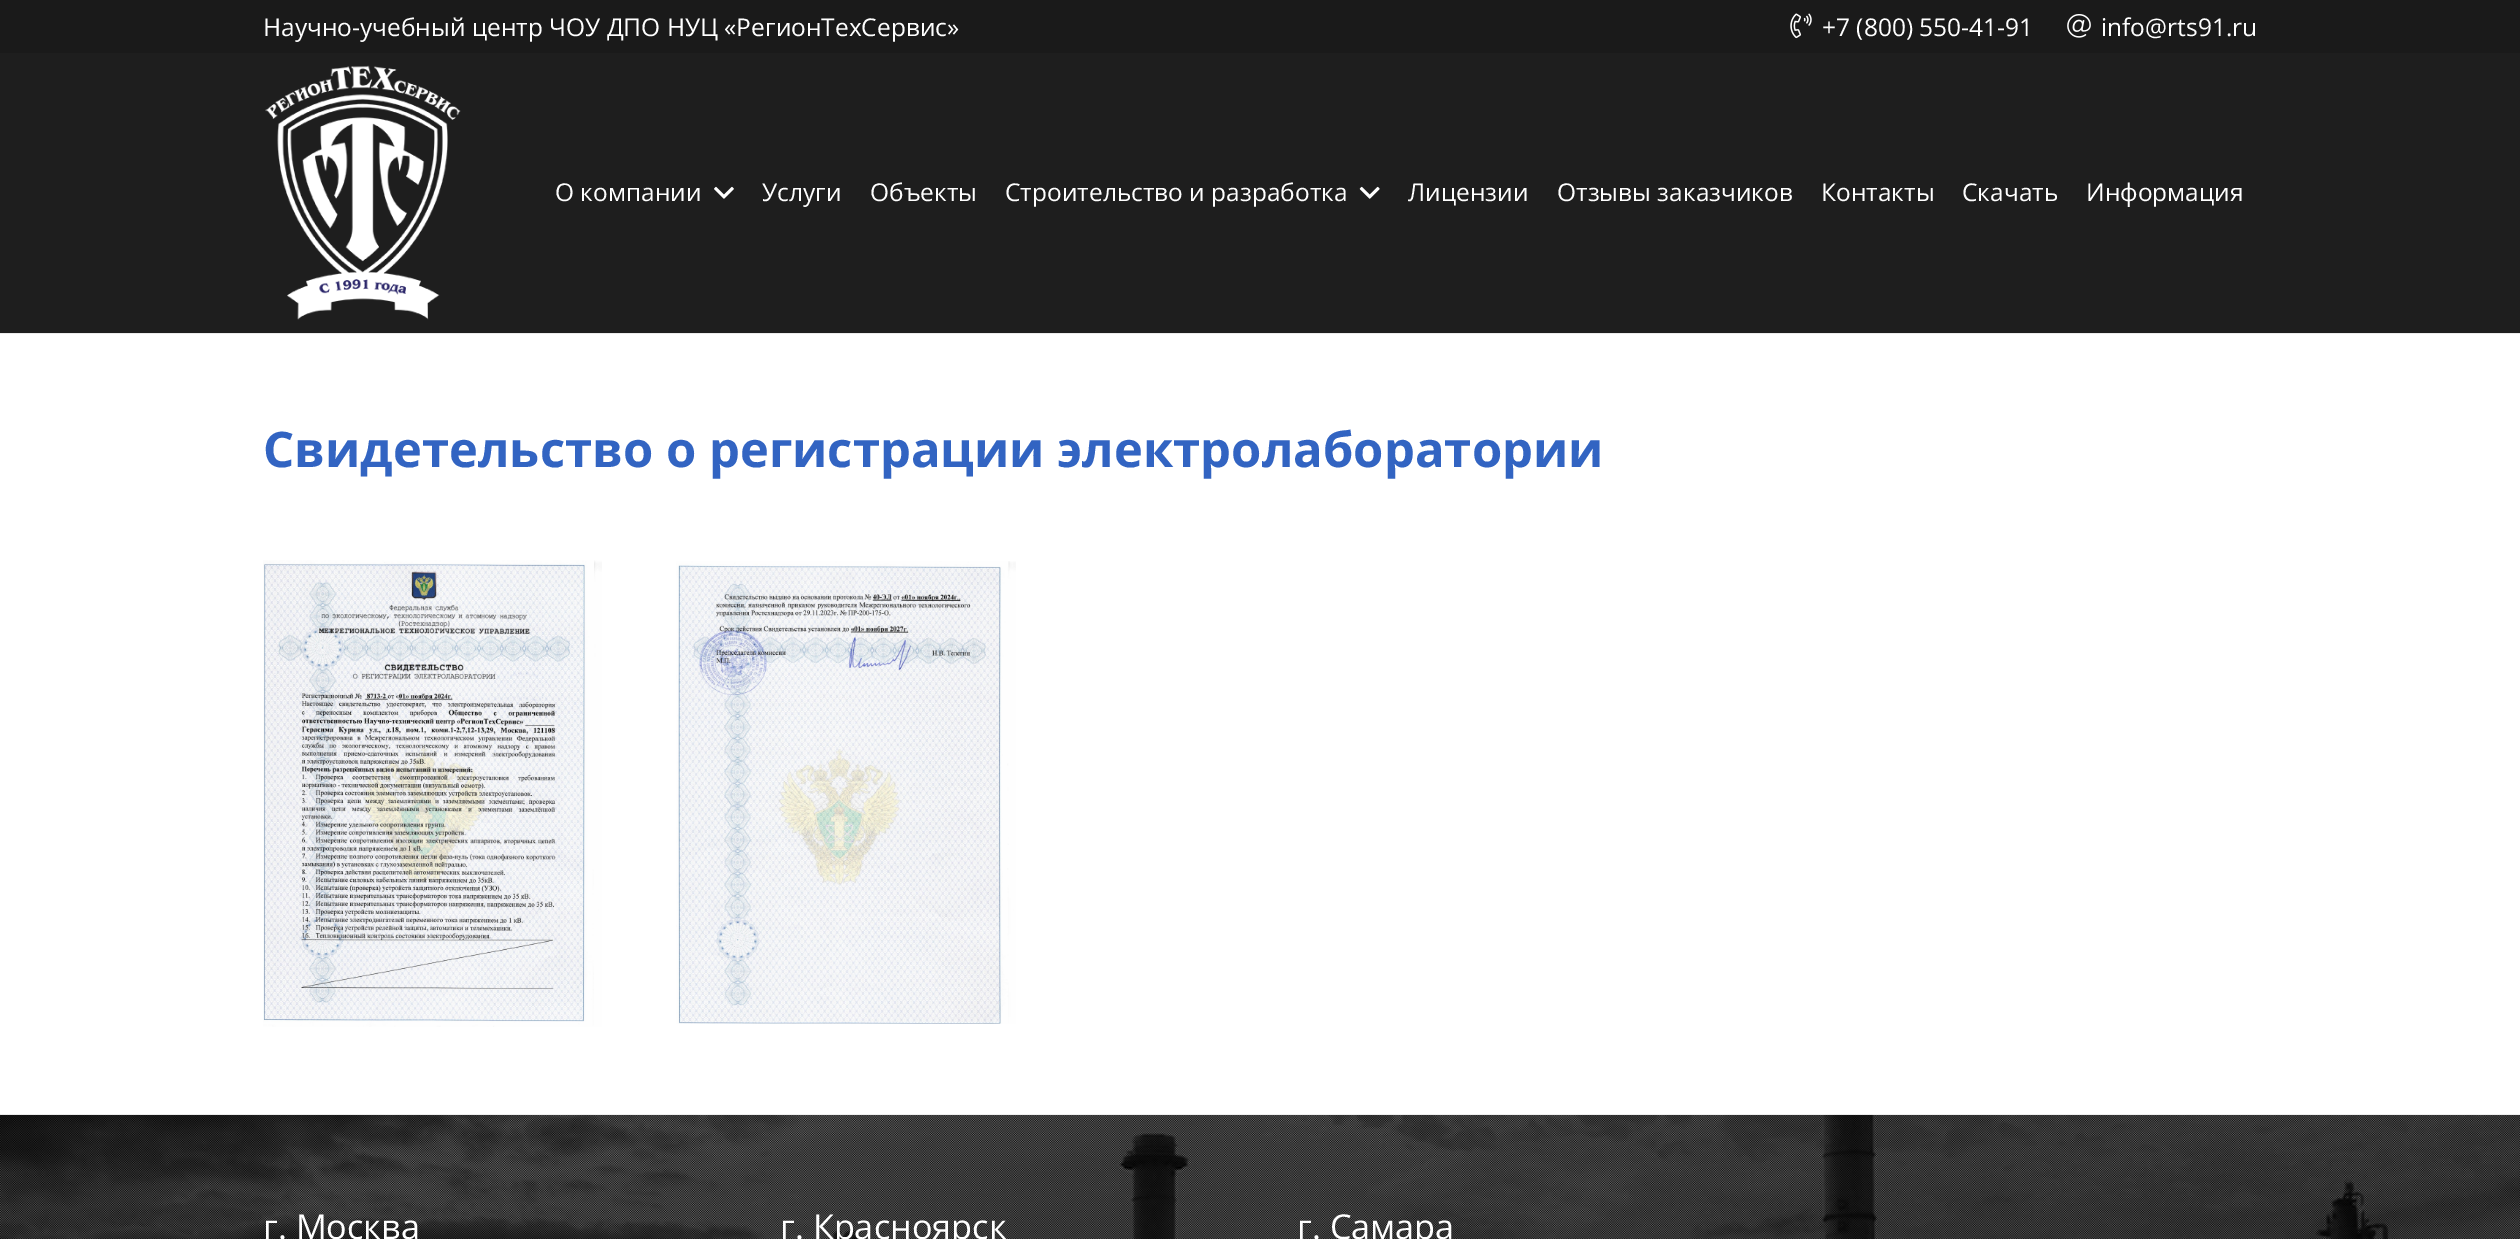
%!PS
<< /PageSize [2520 1239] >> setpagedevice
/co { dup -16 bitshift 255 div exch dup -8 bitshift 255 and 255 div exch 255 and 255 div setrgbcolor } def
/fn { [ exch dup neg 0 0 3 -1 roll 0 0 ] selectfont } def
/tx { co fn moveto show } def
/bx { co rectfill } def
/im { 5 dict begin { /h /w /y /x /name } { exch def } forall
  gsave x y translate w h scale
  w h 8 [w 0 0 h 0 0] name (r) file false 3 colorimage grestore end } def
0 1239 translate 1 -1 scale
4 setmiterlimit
0 0 2520 1239 16#FFFFFF bx
0 0 2520 53 16#1A1A1A bx
(media/1.raw) 1790 13 22 26 im
(media/2.raw) 2067 14 24 24 im
0 333 2520 1 16#EBEBEB bx
0 53 2520 280 16#1E1E1E bx
(media/3.raw) 265 65 196 255 im
(media/4.raw) 714 186 20 13 im
(media/5.raw) 1359 186 21 13 im
(media/6.raw) 263 560 339 467 im
(media/7.raw) 676 561 340 463 im
(media/8.raw) 0 1114 2520 125 im
(media/9.raw) 0 1114 2520 125 im
(Научно-учебный центр ЧОУ ДПО НУЦ «РегионТехСервис») 263 36 /OpenSans-Regular 24.5 16#FFFFFF tx
(+7 \(800\) 550-41-91) 1822 36 /OpenSans-Regular 24.5 16#FFFFFF tx
(info@rts91.ru) 2101 36 /OpenSans-Regular 24.5 16#FFFFFF tx
(О компании) 555 201 /OpenSans-Regular 24.5 16#FFFFFF tx
(Услуги) 762 201 /OpenSans-Regular 24.5 16#FFFFFF tx
(Объекты) 870 201 /OpenSans-Regular 24.5 16#FFFFFF tx
(Строительство и разработка) 1005 201 /OpenSans-Regular 24.5 16#FFFFFF tx
(Лицензии) 1408 201 /OpenSans-Regular 24.5 16#FFFFFF tx
(Отзывы заказчиков) 1557 201 /OpenSans-Regular 24.5 16#FFFFFF tx
(Контакты) 1821 201 /OpenSans-Regular 24.5 16#FFFFFF tx
(Скачать) 1962 201 /OpenSans-Regular 24.5 16#FFFFFF tx
(Информация) 2086 201 /OpenSans-Regular 24.5 16#FFFFFF tx
(Свидетельство о регистрации электролаборатории) 263 467 /OpenSans-Bold 49 16#3264C2 tx
(г. Москва) 263 1239 /OpenSans-Regular 34.25 16#FFFFFF tx
(г. Красноярск) 780 1239 /OpenSans-Regular 34.25 16#FFFFFF tx
(г. Самара) 1297 1239 /OpenSans-Regular 34.25 16#FFFFFF tx
showpage
